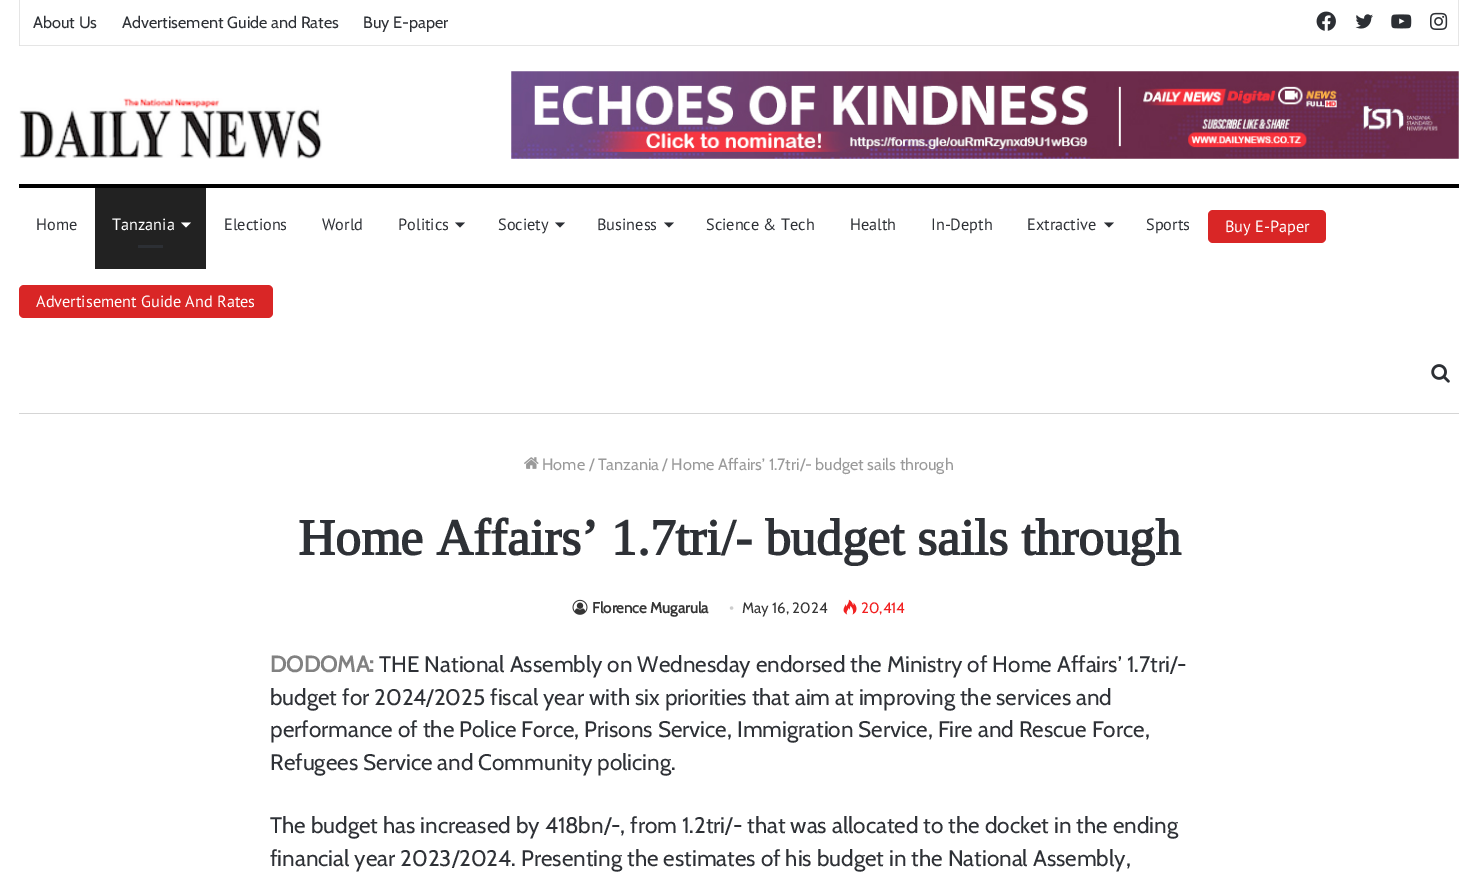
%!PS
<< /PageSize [1477 880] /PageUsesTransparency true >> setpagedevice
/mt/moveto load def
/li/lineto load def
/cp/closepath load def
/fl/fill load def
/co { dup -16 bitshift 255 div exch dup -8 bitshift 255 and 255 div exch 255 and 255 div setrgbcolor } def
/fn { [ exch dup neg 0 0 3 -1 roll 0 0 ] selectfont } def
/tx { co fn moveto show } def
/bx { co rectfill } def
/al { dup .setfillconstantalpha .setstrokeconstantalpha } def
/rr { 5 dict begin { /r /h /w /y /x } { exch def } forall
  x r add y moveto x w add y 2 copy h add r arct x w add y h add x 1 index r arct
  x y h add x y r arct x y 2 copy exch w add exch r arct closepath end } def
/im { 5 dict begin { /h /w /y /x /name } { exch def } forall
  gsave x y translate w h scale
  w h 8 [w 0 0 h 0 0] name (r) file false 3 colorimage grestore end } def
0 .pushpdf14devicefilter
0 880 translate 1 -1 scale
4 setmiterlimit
0 0 1477 880 16#FFFFFF bx
16#E6E6E6 co
1459 0 mt 1459 46 li 1458 45 li 1458 0 li cp fl
0.1 al
16#000000 co
1459 46 mt 19 46 li 20 45 li 1458 45 li cp fl
19 46 mt 19 0 li 20 0 li 20 45 li cp fl
1 al
(media/1.raw) 1316 11 20 20 im
(media/2.raw) 1355 14 18 15 im
(media/3.raw) 1391 14 21 15 im
(media/4.raw) 1430 12 18 18 im
(media/5.raw) 19 98 303 61 im
(media/6.raw) 511 71 948 88 im
19 184 1440 4 16#000000 bx
19 413 1440 1 16#D5D5D5 bx
95 188 111 81 16#222222 bx
16#FFFFFF co
181 222.5 mt 191 222.5 li 186 227.5 li cp fl
138 245 25 3 16#2C2F34 bx
455 222.5 mt 465 222.5 li 460 227.5 li cp fl
555 222.5 mt 565 222.5 li 560 227.5 li cp fl
664 222.5 mt 674 222.5 li 669 227.5 li cp fl
1104 222.5 mt 1114 222.5 li 1109 227.5 li cp fl
16#D92626 co
1208 210 118 33 5 rr fl
19 285 254 33 5 rr fl
(media/7.raw) 1431 364 19 19 im
(media/8.raw) 524 457 15 12 im
(media/9.raw) 572 599 16 16 im
(media/10.raw) 843 599 14 16 im
(About Us) 33 28 /Cabin-Regular 16.25 16#2E3136 tx
(Advertisement Guide and Rates) 122 28 /Cabin-Regular 16.25 16#2E3136 tx
(Buy E-paper) 363 28 /Cabin-Regular 16.25 16#2E3136 tx
(Home) 36 230 /PTSans-Regular 16.25 16#2E3136 tx
(Tanzania) 112 230 /PTSans-Regular 16.25 16#FFFFFF tx
(Elections) 224 230 /PTSans-Regular 16.25 16#2E3136 tx
(World) 322 230 /PTSans-Regular 16.25 16#2E3136 tx
(Politics) 398 230 /PTSans-Regular 16.25 16#2E3136 tx
(Society) 498 230 /PTSans-Regular 16.25 16#2E3136 tx
(Business) 597 230 /PTSans-Regular 16.25 16#2E3136 tx
(Science & Tech) 706 230 /PTSans-Regular 16.25 16#2E3136 tx
(Health) 850 230 /PTSans-Regular 16.25 16#2E3136 tx
(In-Depth) 931 230 /PTSans-Regular 16.25 16#2E3136 tx
(Extractive) 1027 230 /PTSans-Regular 16.25 16#2E3136 tx
(Sports) 1146 230 /PTSans-Regular 16.25 16#2E3136 tx
(Buy E-Paper) 1225 232 /PTSans-Regular 16.25 16#FFFFFF tx
(Advertisement Guide And Rates) 36 307 /PTSans-Regular 16.25 16#FFFFFF tx
(Home / Tanzania / Home Affairs’ 1.7tri/- budget sails through) 542 470 /Cabin-Regular 16.25 16#9A9A9A tx
(Home Affairs’ 1.7tri/- budget sails through) 298 555 /Tinos-Bold 51.25 16#2E3136 tx
(Florence Mugarula) 592 613 /Cabin-Bold 15 16#353535 tx
(•) 729 613 /LiberationSerif-Regular 15 16#CDCDCD tx
(May 16, 2024) 742 613 /Cabin-Regular 15 16#353535 tx
(20,414) 861 613 /Cabin-Regular 15 16#F12020 tx
(DODOMA:) 270 672 /Cabin-Bold 22.5 16#818181 tx
(THE National Assembly on Wednesday endorsed the Ministry of Home Affairs’ 1.7tri/-) 379 672 /Cabin-Regular 22.5 16#2E3136 tx
(budget for 2024/2025 fiscal year with six priorities that aim at improving the services and) 270 705 /Cabin-Regular 22.5 16#2E3136 tx
(performance of the Police Force, Prisons Service, Immigration Service, Fire and Rescue Force,) 270 737 /Cabin-Regular 22.5 16#2E3136 tx
(Refugees Service and Community policing.) 270 770 /Cabin-Regular 22.5 16#2E3136 tx
(The budget has increased by 418bn/-, from 1.2tri/- that was allocated to the docket in the ending) 270 833 /Cabin-Regular 22.5 16#2E3136 tx
(financial year 2023/2024. Presenting the estimates of his budget in the National Assembly,) 270 866 /Cabin-Regular 22.5 16#2E3136 tx
.poppdf14devicefilter showpage
